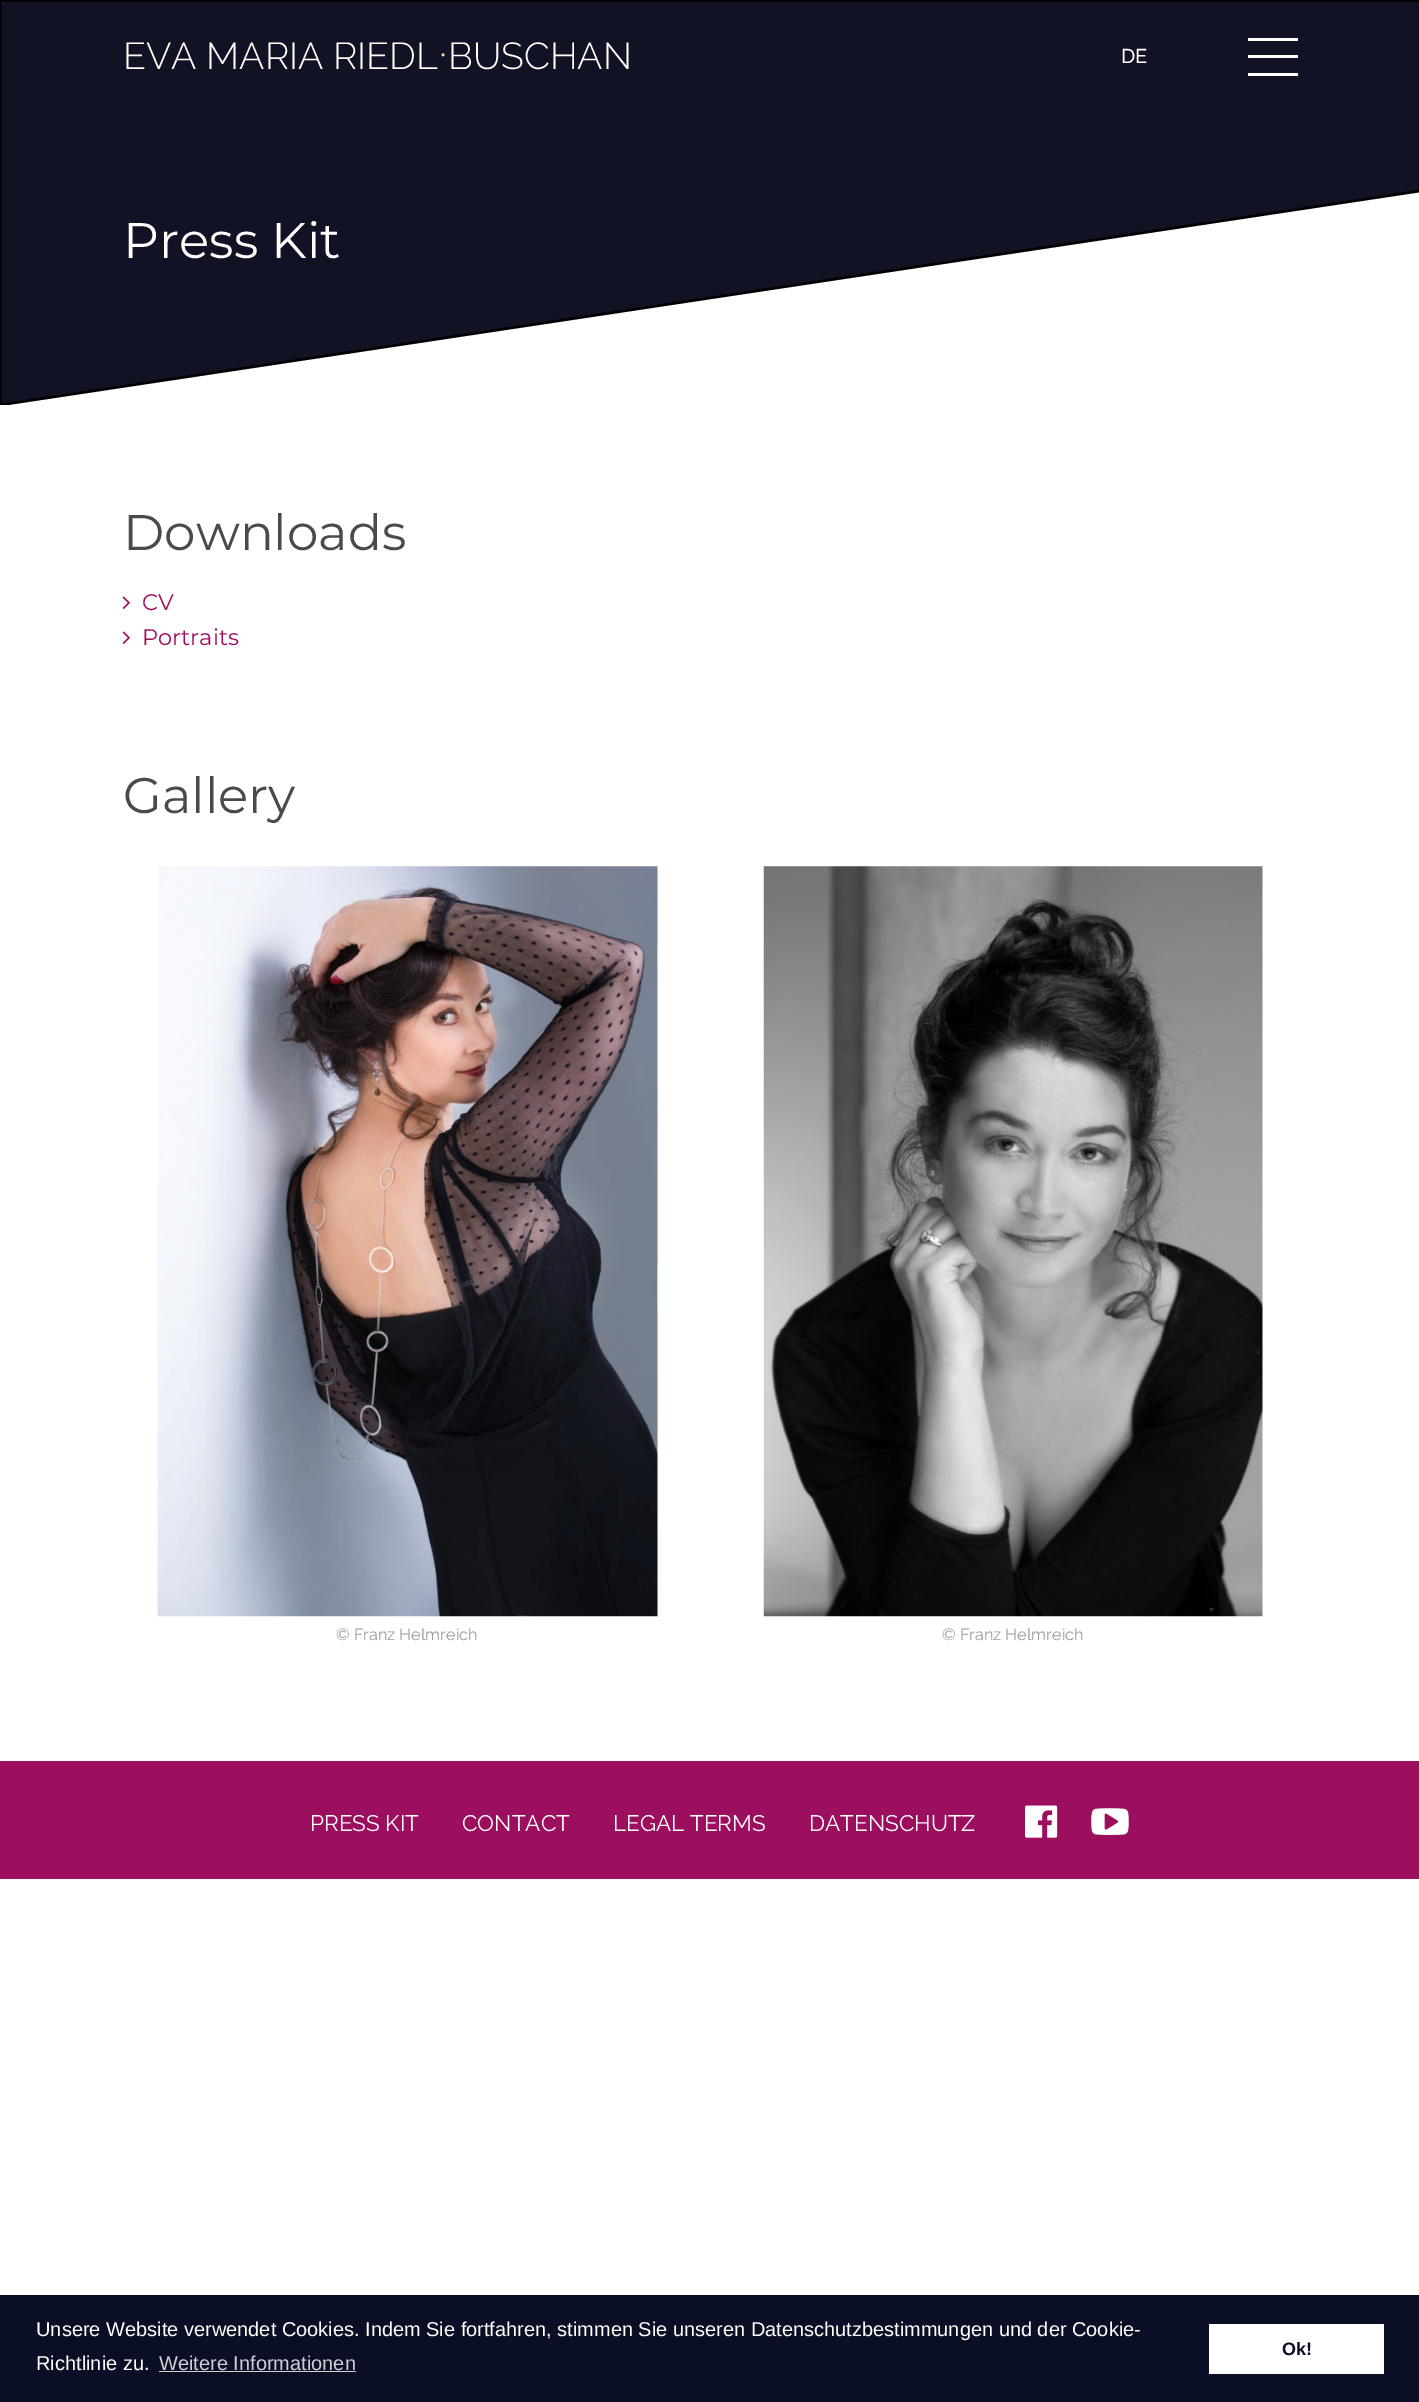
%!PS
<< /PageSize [1419 2402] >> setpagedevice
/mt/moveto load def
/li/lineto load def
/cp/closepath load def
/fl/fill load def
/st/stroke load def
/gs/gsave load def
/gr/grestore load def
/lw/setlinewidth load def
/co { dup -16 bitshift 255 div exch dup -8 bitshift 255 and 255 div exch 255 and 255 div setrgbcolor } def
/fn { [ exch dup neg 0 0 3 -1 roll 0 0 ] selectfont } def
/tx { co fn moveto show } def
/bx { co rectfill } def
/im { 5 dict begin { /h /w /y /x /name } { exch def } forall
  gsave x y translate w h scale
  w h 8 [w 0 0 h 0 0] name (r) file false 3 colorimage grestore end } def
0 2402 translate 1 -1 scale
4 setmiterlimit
0 0 1419 2402 16#FFFFFF bx
16#121225 co
0 0 mt 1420 0 li 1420 191 li 0 405 li cp fl
gs
0 0 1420 405 rectclip
16#000000 co
2.4 lw
0 0 mt 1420 0 li 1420 191 li 0 405 li cp st
gr
1248 38 50 3 16#FFFFFF bx
1248 55 50 3 16#FFFFFF bx
1248 73 50 3 16#FFFFFF bx
(media/1.raw) 122 596 8 13 im
(media/1.raw) 122 631 8 13 im
(media/2.raw) 157 866 501 751 im
(media/3.raw) 763 866 500 751 im
0 1761 1419 118 16#9C0F5F bx
(media/4.raw) 1025 1805 33 33 im
(media/5.raw) 1091 1808 38 27 im
0 2295 1419 107 16#0B0F26 bx
159 2371 197 1 16#CECFD4 bx
1209 2324 175 50 16#FFFFFF bx
(EVA MARIA RIEDL) 123 69 /Raleway-Light 37.5 16#FFFFFF tx
(•) 440 61 /Raleway-Light 18 16#E7DDB6 tx
(BUSCHAN) 448 69 /Raleway-Light 37.5 16#FFFFFF tx
(DE) 1121 63 /Raleway-Medium 20 16#FFFFFF tx
(Press Kit) 123 258 /Montserrat-Regular 50 16#FFFFFF tx
(Downloads) 123 550 /Montserrat-Regular 50 16#4A4A4A tx
(CV) 142 610 /Montserrat-Regular 22.5 16#9C0F5F tx
(Portraits) 142 645 /Montserrat-Regular 22.5 16#9C0F5F tx
(Gallery) 123 813 /Montserrat-Regular 50 16#4A4A4A tx
(© Franz Helmreich) 336 1640 /Raleway-Regular 16.25 16#999999 tx
(© Franz Helmreich) 942 1640 /Raleway-Regular 16.25 16#999999 tx
(PRESS KIT) 310 1831 /Raleway-Regular 22.5 16#FFFFFF tx
(CONTACT) 462 1831 /Raleway-Regular 22.5 16#FFFFFF tx
(LEGAL TERMS) 613 1831 /Raleway-Regular 22.5 16#FFFFFF tx
(DATENSCHUTZ) 809 1831 /Raleway-Regular 22.5 16#FFFFFF tx
(Unsere Website verwendet Cookies. Indem Sie fortfahren, stimmen Sie unseren Datenschutzbestimmungen und der Cookie-) 36 2336 /LiberationSans-Regular 20 16#FFFFFF tx
(Richtlinie zu.) 36 2370 /LiberationSans-Regular 20 16#FFFFFF tx
(Weitere Informationen) 159 2370 /LiberationSans-Regular 20 16#CECFD4 tx
(Ok!) 1282 2355 /LiberationSans-Bold 18 16#0B0F26 tx
showpage
